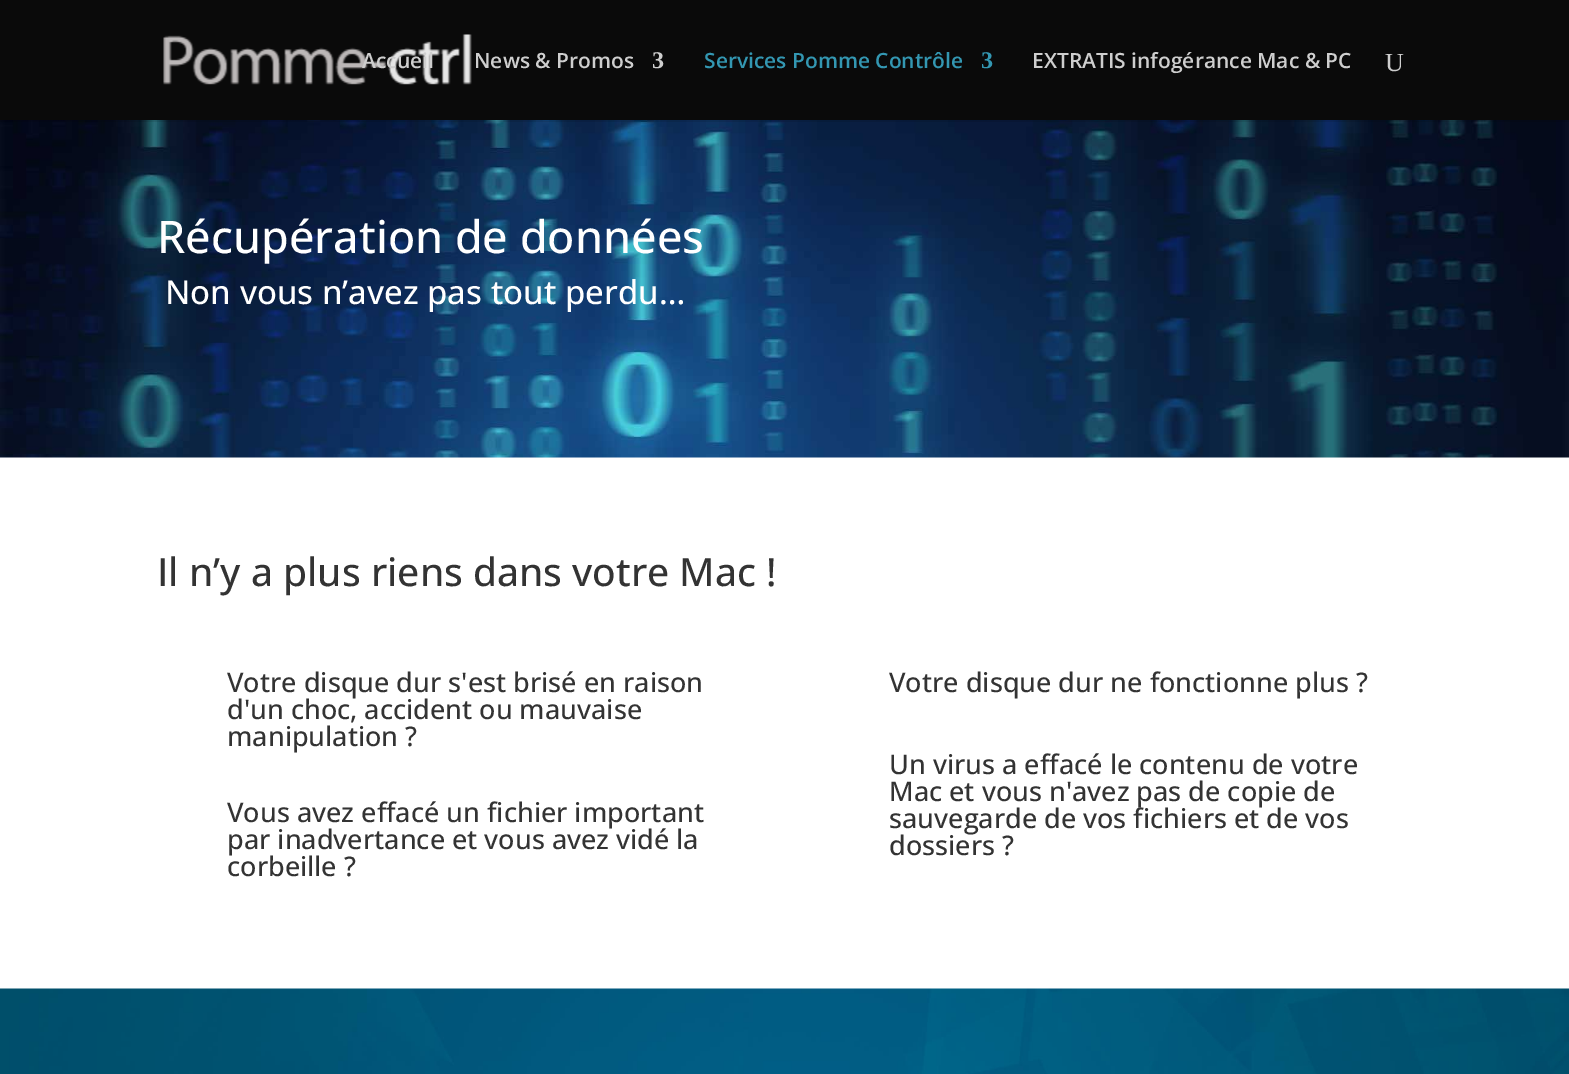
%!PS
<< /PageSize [1569 1074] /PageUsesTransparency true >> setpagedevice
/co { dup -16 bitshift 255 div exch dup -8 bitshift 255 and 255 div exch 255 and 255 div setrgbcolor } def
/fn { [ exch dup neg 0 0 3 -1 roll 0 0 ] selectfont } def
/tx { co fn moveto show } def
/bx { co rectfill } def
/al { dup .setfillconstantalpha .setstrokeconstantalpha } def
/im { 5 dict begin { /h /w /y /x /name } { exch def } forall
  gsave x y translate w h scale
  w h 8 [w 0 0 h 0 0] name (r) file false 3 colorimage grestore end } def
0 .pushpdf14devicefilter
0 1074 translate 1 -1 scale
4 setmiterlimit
0 0 1569 1074 16#FFFFFF bx
(media/2.raw) 0 120 1569 338 im
0.1 al
0 120 1569 2 16#000000 bx
1 al
0 0 1569 120 16#0A0A0A bx
(media/1.raw) 163 34 309 51 im
(media/3.raw) 0 988 1569 86 im
(Accueil) 362 68 /OpenSans-SemiBold 21 16#CECECE tx
(News & Promos) 474 68 /OpenSans-SemiBold 21 16#CECECE tx
(3) 652 68 /LiberationSerif-Bold 24 16#CECECE tx
(Services Pomme Contrôle) 704 68 /OpenSans-SemiBold 21 16#3397B2 tx
(3) 981 68 /LiberationSerif-Bold 24 16#3397B2 tx
(EXTRATIS infogérance Mac & PC) 1032 68 /OpenSans-SemiBold 21 16#CECECE tx
(U) 1385 71 /LiberationSerif-Regular 26 16#CECECE tx
(Récupération de données) 157 253 /OpenSans-Medium 45 16#FFFFFF tx
(Non vous n’avez pas tout perdu…) 165 304 /OpenSans-Medium 33 16#FFFFFF tx
(Il n’y a plus riens dans votre Mac !) 157 586 /OpenSans-Medium 39 16#333333 tx
(Votre disque dur s'est brisé en raison) 227 692 /OpenSans-Medium 27 16#333333 tx
(d'un choc, accident ou mauvaise) 227 719 /OpenSans-Medium 27 16#333333 tx
(manipulation ?) 227 746 /OpenSans-Medium 27 16#333333 tx
(Vous avez effacé un fichier important) 227 822 /OpenSans-Medium 27 16#333333 tx
(par inadvertance et vous avez vidé la) 227 849 /OpenSans-Medium 27 16#333333 tx
(corbeille ?) 227 876 /OpenSans-Medium 27 16#333333 tx
(Votre disque dur ne fonctionne plus ?) 889 692 /OpenSans-Medium 27 16#333333 tx
(Un virus a effacé le contenu de votre) 889 774 /OpenSans-Medium 27 16#333333 tx
(Mac et vous n'avez pas de copie de) 889 801 /OpenSans-Medium 27 16#333333 tx
(sauvegarde de vos fichiers et de vos) 889 828 /OpenSans-Medium 27 16#333333 tx
(dossiers ?) 889 855 /OpenSans-Medium 27 16#333333 tx
.poppdf14devicefilter showpage
